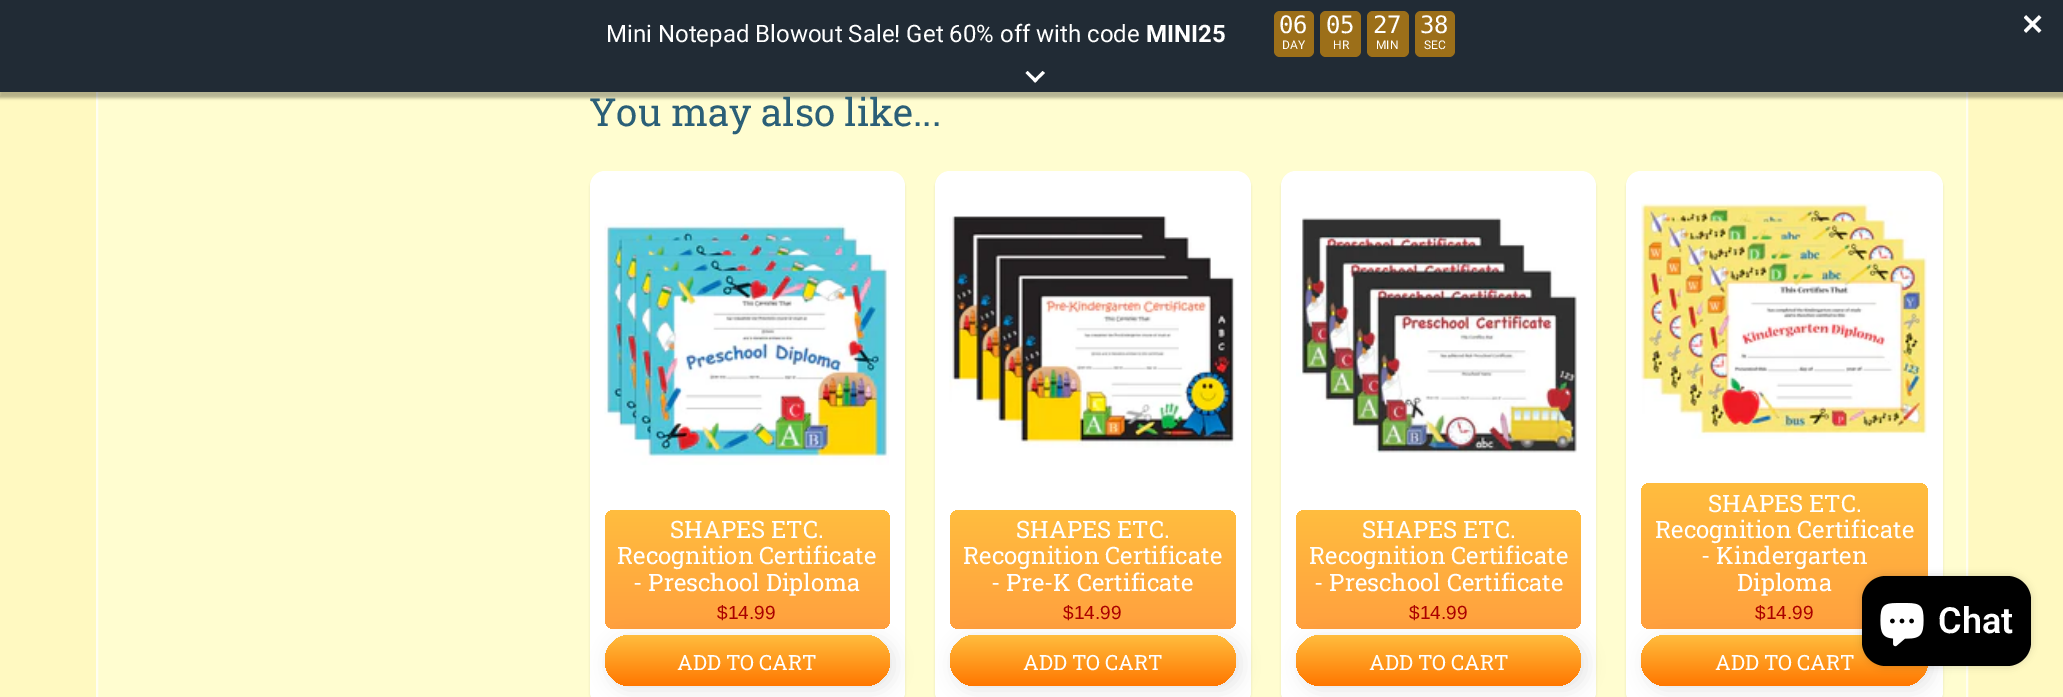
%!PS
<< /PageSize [2063 697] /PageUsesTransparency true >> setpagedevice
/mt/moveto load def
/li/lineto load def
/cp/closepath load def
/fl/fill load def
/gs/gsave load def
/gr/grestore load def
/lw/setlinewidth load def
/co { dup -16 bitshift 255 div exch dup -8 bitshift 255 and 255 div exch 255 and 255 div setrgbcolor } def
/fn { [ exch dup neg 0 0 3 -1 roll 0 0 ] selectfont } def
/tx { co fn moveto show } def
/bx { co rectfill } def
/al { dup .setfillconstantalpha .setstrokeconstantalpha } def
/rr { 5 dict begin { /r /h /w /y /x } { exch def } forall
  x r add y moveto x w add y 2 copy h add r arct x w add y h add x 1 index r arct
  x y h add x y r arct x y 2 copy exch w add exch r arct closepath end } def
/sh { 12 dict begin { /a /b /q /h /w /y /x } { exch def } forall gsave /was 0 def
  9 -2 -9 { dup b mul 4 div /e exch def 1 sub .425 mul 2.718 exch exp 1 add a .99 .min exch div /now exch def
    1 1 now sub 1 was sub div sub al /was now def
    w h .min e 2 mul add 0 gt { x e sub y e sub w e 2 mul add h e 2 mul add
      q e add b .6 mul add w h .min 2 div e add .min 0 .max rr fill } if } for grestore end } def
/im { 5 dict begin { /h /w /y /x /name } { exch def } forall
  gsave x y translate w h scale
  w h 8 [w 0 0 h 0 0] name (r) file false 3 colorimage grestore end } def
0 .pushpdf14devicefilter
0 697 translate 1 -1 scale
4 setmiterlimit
0 0 2063 697 16#FFF9C1 bx
98 92 1868 605 16#FFFDD0 bx
16#FFFEF1 co
2 lw
97 -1 1870 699 rectstroke
16#000000 co
-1 3 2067 95 0 1.5 .3 sh
0 0 2063 92 16#212B35 bx
16#9C6F19 co
1274 11 40 46 6 rr fl
1320 11 41 46 6 rr fl
1367 11 42 46 6 rr fl
1415 11 40 46 6 rr fl
(media/1.raw) 2024 15 18 18 im
16#FFFFFF co
1045 73 mt 1035 82.5 li 1033 80.5 li 1042.5 71 li cp fl
1037.5 80.5 mt 1035 82.5 li 1025.5 73 li 1027.5 71 li cp fl
16#000000 co
590 173 315 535 15 1 .1 sh
16#FFFFFF co
590 171 315 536 15 rr fl
(media/2.raw) 604 223 285 242 im
gs 605 510 285 119 9 rr clip newpath
<< /ShadingType 2 /ColorSpace /DeviceRGB /Coords [747 510 747 629] /Extend [true true] /Function << /FunctionType 2 /Domain [0 1] /C0 [1 .741 .243] /C1 [1 .627 .243] /N 1 >> >> shfill gr
16#000000 co
609 639 285 51 25.5 9 .1 sh
gs 605 635 285 51 25.5 rr clip newpath
<< /ShadingType 2 /ColorSpace /DeviceRGB /Coords [747 635 747 686] /Extend [true true] /Function << /FunctionType 2 /Domain [0 1] /C0 [1 .741 .243] /C1 [1 .467 0] /N 1 >> >> shfill gr
935 173 316 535 15 1 .1 sh
16#FFFFFF co
935 171 316 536 15 rr fl
(media/3.raw) 949 216 287 232 im
gs 950 510 286 119 9 rr clip newpath
<< /ShadingType 2 /ColorSpace /DeviceRGB /Coords [1093 510 1093 629] /Extend [true true] /Function << /FunctionType 2 /Domain [0 1] /C0 [1 .741 .243] /C1 [1 .627 .243] /N 1 >> >> shfill gr
16#000000 co
954 639 287 51 25.5 9 .1 sh
gs 950 635 286 51 25.5 rr clip newpath
<< /ShadingType 2 /ColorSpace /DeviceRGB /Coords [1093 635 1093 686] /Extend [true true] /Function << /FunctionType 2 /Domain [0 1] /C0 [1 .741 .243] /C1 [1 .467 0] /N 1 >> >> shfill gr
1281 173 315 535 15 1 .1 sh
16#FFFFFF co
1281 171 315 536 15 rr fl
(media/4.raw) 1296 217 281 236 im
gs 1296 510 285 119 9 rr clip newpath
<< /ShadingType 2 /ColorSpace /DeviceRGB /Coords [1439 510 1439 629] /Extend [true true] /Function << /FunctionType 2 /Domain [0 1] /C0 [1 .741 .243] /C1 [1 .627 .243] /N 1 >> >> shfill gr
16#000000 co
1301 639 285 51 25.5 9 .1 sh
gs 1296 635 285 51 25.5 rr clip newpath
<< /ShadingType 2 /ColorSpace /DeviceRGB /Coords [1439 635 1439 686] /Extend [true true] /Function << /FunctionType 2 /Domain [0 1] /C0 [1 .741 .243] /C1 [1 .467 0] /N 1 >> >> shfill gr
1626 173 317 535 15 1 .1 sh
16#FFFFFF co
1626 171 317 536 15 rr fl
(media/5.raw) 1641 203 286 236 im
gs 1641 483 287 146 9 rr clip newpath
<< /ShadingType 2 /ColorSpace /DeviceRGB /Coords [1784 483 1784 629] /Extend [true true] /Function << /FunctionType 2 /Domain [0 1] /C0 [1 .741 .243] /C1 [1 .627 .243] /N 1 >> >> shfill gr
16#000000 co
1646 639 286 51 25.5 9 .1 sh
gs 1641 635 287 51 25.5 rr clip newpath
<< /ShadingType 2 /ColorSpace /DeviceRGB /Coords [1784 635 1784 686] /Extend [true true] /Function << /FunctionType 2 /Domain [0 1] /C0 [1 .741 .243] /C1 [1 .467 0] /N 1 >> >> shfill gr
1862 576 169 90 24 4 .15 sh
1862 576 169 90 24 rr fl
(media/6.raw) 1880 603 44 44 im
(Mini Notepad Blowout Sale! Get 60% off with code) 606 42 /Roboto-Regular 24 16#FFFFFF tx
(MINI25) 1146 42 /Roboto-Bold 24 16#FFFFFF tx
(06) 1279 33 /DejaVuSansMono-Regular 24 16#FFFFFF tx
(DAY) 1282 49 /Roboto-Regular 12 16#FFFFFF tx
(05) 1326 33 /DejaVuSansMono-Regular 24 16#FFFFFF tx
(HR) 1333 49 /Roboto-Regular 12 16#FFFFFF tx
(27) 1373 33 /DejaVuSansMono-Regular 24 16#FFFFFF tx
(MIN) 1376 49 /Roboto-Regular 12 16#FFFFFF tx
(38) 1420 33 /DejaVuSansMono-Regular 24 16#FFFFFF tx
(SEC) 1424 49 /Roboto-Regular 12 16#FFFFFF tx
(You may also like...) 589 126 /RobotoSlab-Regular 38.5 16#2B5F77 tx
(SHAPES ETC.) 670 538 /RobotoSlab-Regular 24 16#FFFFFF tx
(Recognition Certificate) 617 564 /RobotoSlab-Regular 24 16#FFFFFF tx
(- Preschool Diploma) 633 591 /RobotoSlab-Regular 24 16#FFFFFF tx
($14.99) 717 619 /Arimo-Regular 19 16#AA0000 tx
(ADD TO CART) 677 670 /RobotoSlab-Regular 21 16#FFFFFF tx
(SHAPES ETC.) 1016 538 /RobotoSlab-Regular 24 16#FFFFFF tx
(Recognition Certificate) 963 564 /RobotoSlab-Regular 24 16#FFFFFF tx
(- Pre-K Certificate) 991 591 /RobotoSlab-Regular 24 16#FFFFFF tx
($14.99) 1063 619 /Arimo-Regular 19 16#AA0000 tx
(ADD TO CART) 1023 670 /RobotoSlab-Regular 21 16#FFFFFF tx
(SHAPES ETC.) 1362 538 /RobotoSlab-Regular 24 16#FFFFFF tx
(Recognition Certificate) 1309 564 /RobotoSlab-Regular 24 16#FFFFFF tx
(- Preschool Certificate) 1314 591 /RobotoSlab-Regular 24 16#FFFFFF tx
($14.99) 1409 619 /Arimo-Regular 19 16#AA0000 tx
(ADD TO CART) 1369 670 /RobotoSlab-Regular 21 16#FFFFFF tx
(SHAPES ETC.) 1708 512 /RobotoSlab-Regular 24 16#FFFFFF tx
(Recognition Certificate) 1655 538 /RobotoSlab-Regular 24 16#FFFFFF tx
(- Kindergarten) 1701 564 /RobotoSlab-Regular 24 16#FFFFFF tx
(Diploma) 1737 591 /RobotoSlab-Regular 24 16#FFFFFF tx
($14.99) 1755 619 /Arimo-Regular 19 16#AA0000 tx
(ADD TO CART) 1715 670 /RobotoSlab-Regular 21 16#FFFFFF tx
(Chat) 1938 633 /Roboto-SemiBold 36 16#FFFFFF tx
.poppdf14devicefilter showpage
